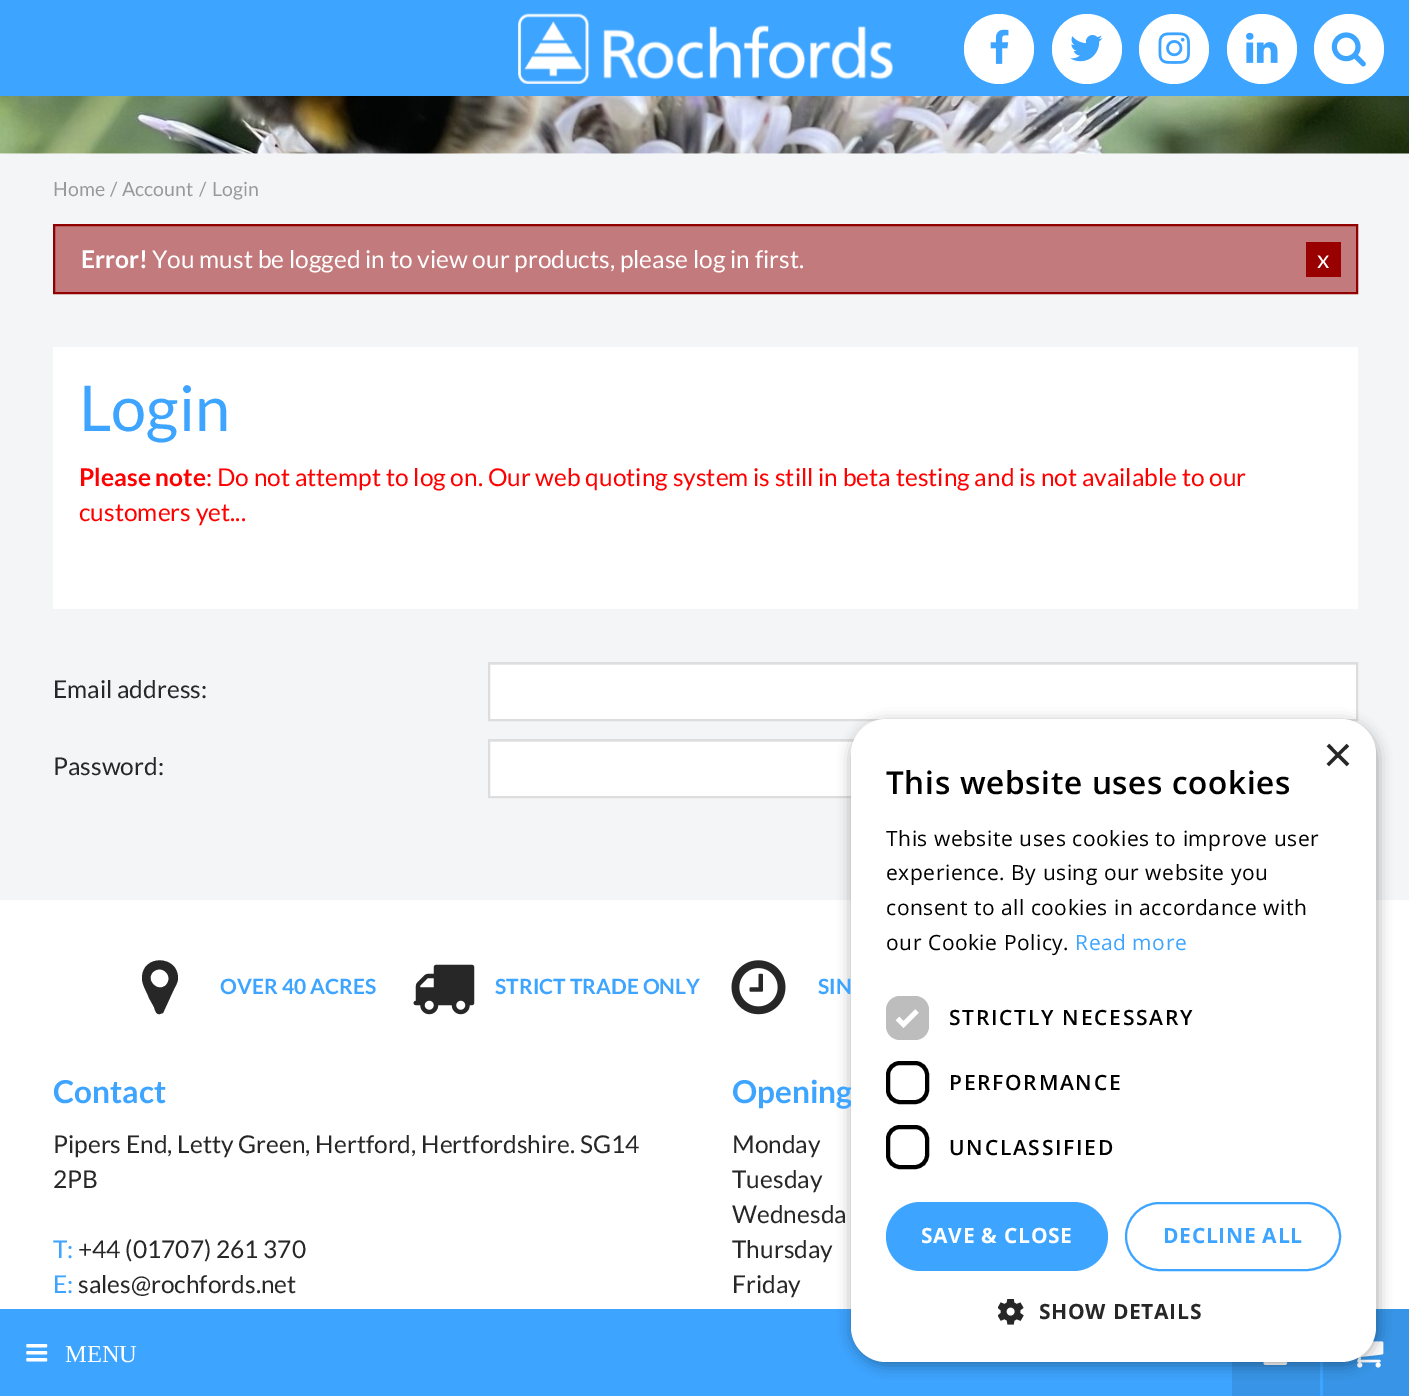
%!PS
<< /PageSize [1409 1396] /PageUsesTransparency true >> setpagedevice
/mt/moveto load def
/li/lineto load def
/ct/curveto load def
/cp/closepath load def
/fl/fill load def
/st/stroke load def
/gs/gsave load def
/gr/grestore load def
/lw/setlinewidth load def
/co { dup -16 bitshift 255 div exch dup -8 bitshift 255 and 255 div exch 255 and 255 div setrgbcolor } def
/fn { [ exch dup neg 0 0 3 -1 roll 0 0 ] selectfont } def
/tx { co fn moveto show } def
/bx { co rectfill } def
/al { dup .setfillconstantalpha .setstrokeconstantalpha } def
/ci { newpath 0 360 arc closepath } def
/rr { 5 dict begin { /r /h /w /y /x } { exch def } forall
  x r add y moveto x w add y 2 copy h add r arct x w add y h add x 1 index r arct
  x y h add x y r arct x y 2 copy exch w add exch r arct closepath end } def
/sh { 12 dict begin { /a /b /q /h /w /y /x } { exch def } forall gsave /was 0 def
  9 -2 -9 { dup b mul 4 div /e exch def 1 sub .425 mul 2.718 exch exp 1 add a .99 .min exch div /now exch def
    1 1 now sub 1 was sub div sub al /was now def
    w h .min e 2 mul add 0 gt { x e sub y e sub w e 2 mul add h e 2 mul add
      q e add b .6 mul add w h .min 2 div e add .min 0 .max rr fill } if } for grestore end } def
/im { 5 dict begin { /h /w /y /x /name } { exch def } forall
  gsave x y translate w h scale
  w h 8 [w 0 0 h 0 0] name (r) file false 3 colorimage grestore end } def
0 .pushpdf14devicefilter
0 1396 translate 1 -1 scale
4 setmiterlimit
0 0 1409 1396 16#F4F5F7 bx
0 153 1409 1 16#FFFFFF bx
(media/1.raw) 0 96 1409 58 im
0 0 1409 96 16#3DA4FF bx
(media/2.raw) 518 13 375 71 im
16#FFFFFF co
999 49 35 ci fl
(media/3.raw) 990 29 19 35 im
1087 49 35 ci fl
(media/4.raw) 1070 35 33 27 im
1174 49 35 ci fl
(media/5.raw) 1158 32 32 32 im
1262 49 35 ci fl
(media/6.raw) 1246 32 32 31 im
1349 49 35 ci fl
(media/7.raw) 1331 32 35 35 im
16#C27A7C co
54 225 mt 1357 225 li 1357 293 li 54 293 li cp gs fl gr
16#900000 co
2 lw
st
1306 242 35 35 16#990000 bx
53 347 1305 262 16#FFFFFF bx
490 665 866 54 16#FFFFFF bx
490 664 866 1 16#ECECEC bx
16#DDDDDD co
489 663 868 57 rectstroke
490 742 364 54 16#FFFFFF bx
490 741 364 1 16#ECECEC bx
16#DDDDDD co
489 740 868 57 rectstroke
0 900 1409 409 16#FFFFFF bx
16#282727 co
166 985 mt 174 976 162 964 153 972 ct 145 980 158 993 166 985 ct cp 178 978 mt 178 982 176 985 174 989 ct 163 1013 li 160 1014 li 156 1015 155 1010 154 1007 ct 149 998 li 147 992 142 985 142 978 ct 142 954 178 955 178 978 ct cp fl
(media/8.raw) 413 964 62 51 im
(media/9.raw) 731 960 55 55 im
0 1309 1323 87 16#3DA4FF bx
(media/10.raw) 26 1344 22 18 im
1323 1309 86 87 16#3794E6 bx
(media/11.raw) 1357 1341 27 27 im
1232 1362 88 34 16#3794E6 bx
(media/12.raw) 1263 1362 25 3 im
16#000000 co
852 723 525 642 35 7 .35 sh
(Home) 53 196 /Lato-Regular 19.5 16#999999 tx
(/) 110 196 /Lato-Regular 19.5 16#999999 tx
(Account) 122 196 /Lato-Regular 19.5 16#999999 tx
(/) 199 196 /Lato-Regular 19.5 16#999999 tx
(Login) 212 196 /Lato-Regular 19.5 16#999999 tx
(Error!) 81 268 /Lato-Bold 24.5 16#FFFFFF tx
(You must be logged in to view our products, please log in first.) 152 268 /Lato-Regular 24.5 16#FFFFFF tx
(x) 1317 268 /Lato-Regular 24.5 16#FFFFFF tx
(Login) 79 431 /Lato-Regular 63 16#3DA4FF tx
(Please note) 79 486 /Lato-Bold 24.5 16#FF0000 tx
(: Do not attempt to log on. Our web quoting system is still in beta testing and is not available to our) 206 486 /Lato-Regular 24.5 16#FF0000 tx
(customers yet...) 79 521 /Lato-Regular 24.5 16#FF0000 tx
(Email address:) 53 698 /Lato-Regular 24.5 16#282727 tx
(Password:) 53 775 /Lato-Regular 24.5 16#282727 tx
(OVER 40 ACRES) 220 994 /Lato-Bold 21 16#3DA4FF tx
(STRICT TRADE ONLY) 495 994 /Lato-Bold 21 16#3DA4FF tx
(SIN) 818 994 /Lato-Bold 21 16#3DA4FF tx
(Contact) 53 1103 /Lato-Bold 31.5 16#3DA4FF tx
(Pipers End, Letty Green, Hertford, Hertfordshire. SG14) 53 1153 /Lato-Regular 24.5 16#282727 tx
(2PB) 53 1188 /Lato-Regular 24.5 16#282727 tx
(T:) 53 1258 /Lato-Regular 24.5 16#3DA4FF tx
(+44 \(01707\) 261 370) 78 1258 /Lato-Regular 24.5 16#282727 tx
(E:) 53 1293 /Lato-Regular 24.5 16#3DA4FF tx
(sales@rochfords.net) 78 1293 /Lato-Regular 24.5 16#282727 tx
(Opening) 732 1103 /Lato-Bold 31.5 16#3DA4FF tx
(Monday) 732 1153 /Lato-Regular 24.5 16#282727 tx
(Tuesday) 732 1188 /Lato-Regular 24.5 16#282727 tx
(Wednesda) 732 1223 /Lato-Regular 24.5 16#282727 tx
(Thursday) 732 1258 /Lato-Regular 24.5 16#282727 tx
(Friday) 732 1293 /Lato-Regular 24.5 16#282727 tx
(MENU) 65 1362 /LiberationSerif-Regular 24.5 16#FFFFFF tx
851 719 525 643 35 rr fl
(×) 1323 772 /LiberationSans-Regular 51 16#282727 tx
/OpenSans-SemiBold 31.5 fn
16#000000 co
886 794 mt .7 0 (This website uses cookies) ashow
/OpenSans-Regular 21 fn
886 846 mt .55 0 (This website uses cookies to improve user) ashow
886 880 mt .55 0 (experience. By using our website you) ashow
886 915 mt .55 0 (consent to all cookies in accordance with) ashow
886 950 mt .55 0 (our Cookie Policy.) ashow
16#3DA4FF co
1075 950 mt .55 0 (Read more) ashow
16#BDBDBD co
886 996 43 44 14 rr fl
16#FFFFFF co
4.6 lw
897.5 1018.5 mt 903.5 1024.5 li 917 1011 li st
/OpenSans-SemiBold 21 fn
16#000000 co
949 1025 mt 1.75 0 (STRICTLY NECESSARY) ashow
4 lw
888 1063 39 39 12 rr st
949 1090 mt 1.75 0 (PERFORMANCE) ashow
888 1127 39 40 12 rr st
949 1155 mt 1.75 0 (UNCLASSIFIED) ashow
16#3DA4FF co
886 1202 222 69 34.5 rr fl
/OpenSans-Bold 21 fn
16#FFFFFF co
921 1243 mt .7 0 (SAVE & CLOSE) ashow
16#3DA4FF co
2 lw
1126 1203 214 67 33.5 rr st
1163 1243 mt .7 0 (DECLINE ALL) ashow
(media/13.raw) 998 1299 26 26 im
16#282727 co
1039 1319 mt .7 0 (SHOW DETAILS) ashow
.poppdf14devicefilter showpage
